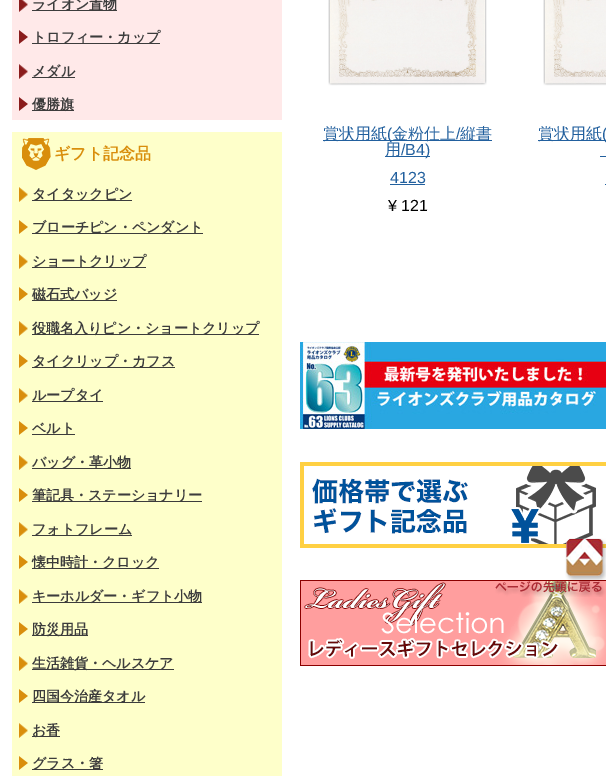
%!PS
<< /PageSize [606 776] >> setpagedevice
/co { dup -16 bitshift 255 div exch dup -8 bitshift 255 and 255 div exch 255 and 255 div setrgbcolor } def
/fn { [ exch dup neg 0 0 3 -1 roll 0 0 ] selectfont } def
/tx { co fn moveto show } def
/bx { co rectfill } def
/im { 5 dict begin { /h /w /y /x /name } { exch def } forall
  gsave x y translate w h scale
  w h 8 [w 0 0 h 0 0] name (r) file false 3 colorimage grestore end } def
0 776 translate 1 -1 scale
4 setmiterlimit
0 0 606 776 16#FFFFFF bx
12 0 270 120 16#FFE9E9 bx
(media/1.raw) 19 0 9 12 im
32 10 85 1 16#3C3C3C bx
(media/2.raw) 19 30 9 14 im
32 43 128 1 16#3C3C3C bx
(media/3.raw) 19 64 9 15 im
32 77 43 1 16#3C3C3C bx
(media/2.raw) 19 97 9 14 im
32 110 42 1 16#3C3C3C bx
12 132 270 644 16#FEFFCA bx
(media/4.raw) 22 138 29 32 im
(media/5.raw) 19 187 9 15 im
32 200 100 1 16#3C3C3C bx
(media/6.raw) 19 220 9 14 im
32 233 171 1 16#3C3C3C bx
(media/5.raw) 19 254 9 15 im
32 267 114 1 16#3C3C3C bx
(media/6.raw) 19 287 9 14 im
32 300 85 1 16#3C3C3C bx
(media/5.raw) 19 321 9 15 im
32 334 227 1 16#3C3C3C bx
(media/6.raw) 19 354 9 14 im
32 367 143 1 16#3C3C3C bx
(media/5.raw) 19 388 9 15 im
32 401 71 1 16#3C3C3C bx
(media/6.raw) 19 421 9 14 im
32 434 43 1 16#3C3C3C bx
(media/5.raw) 19 455 9 15 im
32 468 99 1 16#3C3C3C bx
(media/6.raw) 19 488 9 14 im
32 501 170 1 16#3C3C3C bx
(media/5.raw) 19 522 9 15 im
32 535 100 1 16#3C3C3C bx
(media/6.raw) 19 555 9 14 im
32 568 127 1 16#3C3C3C bx
(media/5.raw) 19 589 9 15 im
32 602 170 1 16#3C3C3C bx
(media/6.raw) 19 622 9 14 im
32 635 56 1 16#3C3C3C bx
(media/5.raw) 19 656 9 15 im
32 669 142 1 16#3C3C3C bx
(media/6.raw) 19 689 9 14 im
32 702 113 1 16#3C3C3C bx
(media/5.raw) 19 723 9 15 im
32 736 28 1 16#3C3C3C bx
(media/6.raw) 19 756 9 14 im
32 769 71 1 16#3C3C3C bx
(media/7.raw) 328 0 159 86 im
323 140 169 1 16#22609E bx
385 156 45 1 16#22609E bx
390 184 35 1 16#22609E bx
(media/8.raw) 543 0 63 86 im
538 140 68 1 16#22609E bx
600 156 6 1 16#22609E bx
605 184 1 1 16#22609E bx
(media/9.raw) 300 342 306 87 im
(media/10.raw) 300 462 306 86 im
(media/11.raw) 300 580 306 86 im
(media/12.raw) 495 538 111 59 im
(ライオン置物) 32 9 /WenQuanYiZenHei-Bold 14 16#3C3C3C tx
(トロフィー・カップ) 32 42 /WenQuanYiZenHei-Bold 14 16#3C3C3C tx
(メダル) 32 76 /WenQuanYiZenHei-Bold 14 16#3C3C3C tx
(優勝旗) 32 109 /WenQuanYiZenHei-Bold 14 16#3C3C3C tx
(ギフト記念品) 54 159 /WenQuanYiZenHei-Bold 16 16#D98E0C tx
(タイタックピン) 32 199 /WenQuanYiZenHei-Bold 14 16#3C3C3C tx
(ブローチピン・ペンダント) 32 232 /WenQuanYiZenHei-Bold 14 16#3C3C3C tx
(ショートクリップ) 32 266 /WenQuanYiZenHei-Bold 14 16#3C3C3C tx
(磁石式バッジ) 32 299 /WenQuanYiZenHei-Bold 14 16#3C3C3C tx
(役職名入りピン・ショートクリップ) 32 333 /WenQuanYiZenHei-Bold 14 16#3C3C3C tx
(タイクリップ・カフス) 32 366 /WenQuanYiZenHei-Bold 14 16#3C3C3C tx
(ループタイ) 32 400 /WenQuanYiZenHei-Bold 14 16#3C3C3C tx
(ベルト) 32 433 /WenQuanYiZenHei-Bold 14 16#3C3C3C tx
(バッグ・革小物) 32 467 /WenQuanYiZenHei-Bold 14 16#3C3C3C tx
(筆記具・ステーショナリー) 32 500 /WenQuanYiZenHei-Bold 14 16#3C3C3C tx
(フォトフレーム) 32 534 /WenQuanYiZenHei-Bold 14 16#3C3C3C tx
(懐中時計・クロック) 32 567 /WenQuanYiZenHei-Bold 14 16#3C3C3C tx
(キーホルダー・ギフト小物) 32 601 /WenQuanYiZenHei-Bold 14 16#3C3C3C tx
(防災用品) 32 634 /WenQuanYiZenHei-Bold 14 16#3C3C3C tx
(生活雑貨・ヘルスケア) 32 668 /WenQuanYiZenHei-Bold 14 16#3C3C3C tx
(四国今治産タオル) 32 701 /WenQuanYiZenHei-Bold 14 16#3C3C3C tx
(お香) 32 735 /WenQuanYiZenHei-Bold 14 16#3C3C3C tx
(グラス・箸) 32 768 /WenQuanYiZenHei-Bold 14 16#3C3C3C tx
(賞状用紙) 323 139 /WenQuanYiZenHei-Medium 16 16#22609E tx
(\() 387 139 /LiberationSans-Regular 16 16#22609E tx
(金粉仕上) 392 139 /WenQuanYiZenHei-Medium 16 16#22609E tx
(/) 456 139 /LiberationSans-Regular 16 16#22609E tx
(縦書) 460 139 /WenQuanYiZenHei-Medium 16 16#22609E tx
(用) 385 155 /WenQuanYiZenHei-Medium 16 16#22609E tx
(/B4\)) 401 155 /LiberationSans-Regular 16 16#22609E tx
(4123) 390 183 /LiberationSans-Regular 16 16#22609E tx
(¥ 121) 388 211 /LiberationSans-Regular 16 16#000000 tx
(賞状用紙) 538 139 /WenQuanYiZenHei-Medium 16 16#22609E tx
(\() 602 139 /LiberationSans-Regular 16 16#22609E tx
showpage
